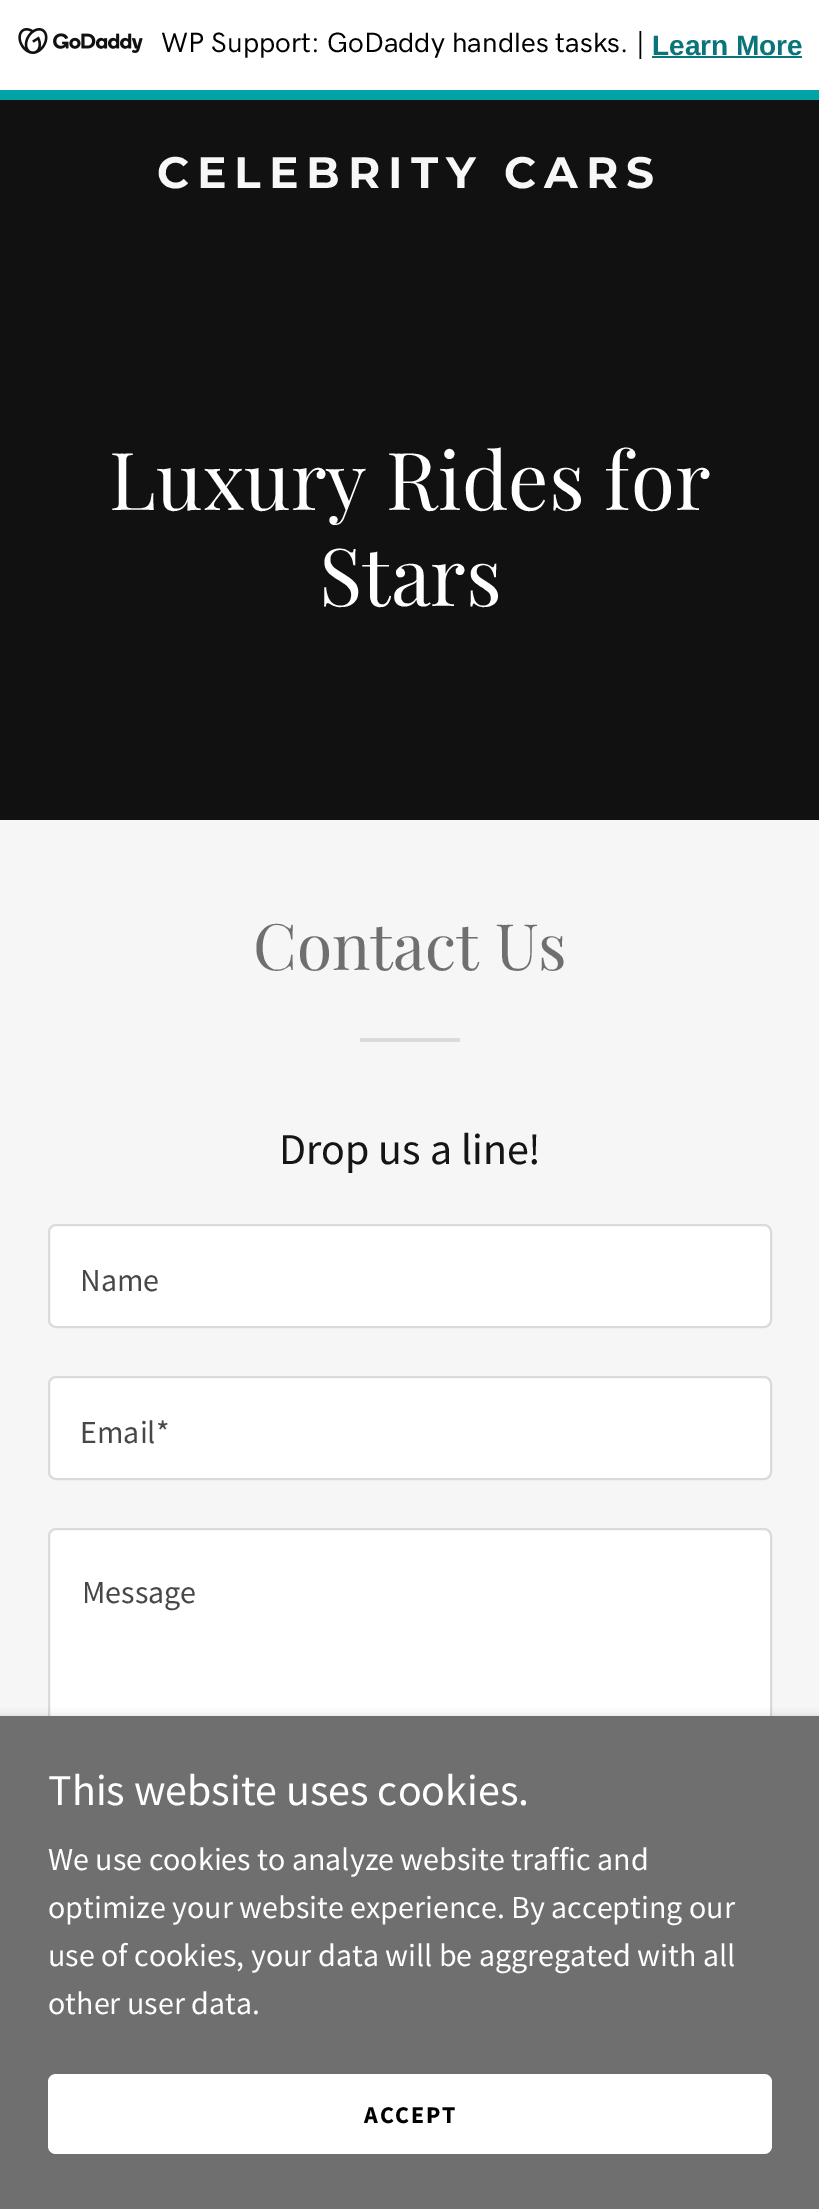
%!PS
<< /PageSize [819 2209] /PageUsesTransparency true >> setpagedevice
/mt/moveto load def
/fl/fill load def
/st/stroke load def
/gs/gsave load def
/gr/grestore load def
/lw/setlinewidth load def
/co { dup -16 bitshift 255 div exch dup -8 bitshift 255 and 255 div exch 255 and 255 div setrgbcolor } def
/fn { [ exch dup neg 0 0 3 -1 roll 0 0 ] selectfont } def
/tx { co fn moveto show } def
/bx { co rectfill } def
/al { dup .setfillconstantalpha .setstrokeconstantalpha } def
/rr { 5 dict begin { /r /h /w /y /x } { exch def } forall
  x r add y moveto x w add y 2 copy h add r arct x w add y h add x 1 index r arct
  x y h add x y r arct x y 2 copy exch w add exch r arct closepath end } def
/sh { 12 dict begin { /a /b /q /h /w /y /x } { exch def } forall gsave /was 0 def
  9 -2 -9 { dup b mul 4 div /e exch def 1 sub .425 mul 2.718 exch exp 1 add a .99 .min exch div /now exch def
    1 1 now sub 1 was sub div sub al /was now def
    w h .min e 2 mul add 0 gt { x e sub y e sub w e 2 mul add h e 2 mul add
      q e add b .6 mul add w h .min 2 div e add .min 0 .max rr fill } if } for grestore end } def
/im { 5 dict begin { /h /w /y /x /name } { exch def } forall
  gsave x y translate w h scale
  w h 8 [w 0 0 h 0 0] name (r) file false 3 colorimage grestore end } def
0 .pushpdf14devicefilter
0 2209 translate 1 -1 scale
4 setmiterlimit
0 0 819 2209 16#F6F6F6 bx
0 0 819 90 16#FFFFFF bx
0 90 819 10 16#00A4A6 bx
(media/1.raw) 18 28 125 26 im
652 56 150 2 16#09757A bx
0 100 819 720 16#111111 bx
360 1038 100 4 16#DADADA bx
16#FFFFFF co
49 1225 722 102 7 rr gs fl gr
16#DADADA co
2 lw
st
16#FFFFFF co
49 1377 722 102 7 rr gs fl gr
16#DADADA co
st
16#FFFFFF co
49 1529 722 402 7 rr gs fl gr
16#DADADA co
st
16#000000 co
0 1720 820 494 0 6 .3 sh
0 1716 819 493 16#6F6F6F bx
16#FFFFFF co
48 2074 724 80 8 rr fl
(WP Support: GoDaddy handles tasks. |) 161 52 /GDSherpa-Medium 28 16#000000 tx
(Learn More) 652 55 /LiberationSans-Bold 28 16#09757A tx
/Montserrat-Bold 44 fn
16#F7F7F7 co
157 188 mt 8 0 (CELEBRITY CARS) ashow
(Luxury Rides for) 109 510 /PlayfairDisplay-Regular 80 16#FFFFFF tx
(Stars) 319 606 /PlayfairDisplay-Regular 80 16#FFFFFF tx
(Contact Us) 253 970 /PlayfairDisplay-Regular 64 16#6F6F6F tx
(Drop us a line!) 279 1164 /SourceSansPro-Regular 44 16#151515 tx
(Name) 80 1291 /SourceSansPro-Regular 32 16#474747 tx
(Email*) 80 1443 /SourceSansPro-Regular 32 16#474747 tx
(Message) 82 1603 /SourceSansPro-Regular 32 16#474747 tx
(This website uses cookies.) 48 1805 /SourceSansPro-Regular 44 16#FFFFFF tx
(We use cookies to analyze website traffic and) 48 1870 /SourceSansPro-Regular 32 16#FFFFFF tx
(optimize your website experience. By accepting our) 48 1918 /SourceSansPro-Regular 32 16#FFFFFF tx
(use of cookies, your data will be aggregated with all) 48 1966 /SourceSansPro-Regular 32 16#FFFFFF tx
(other user data.) 48 2014 /SourceSansPro-Regular 32 16#FFFFFF tx
/SourceSansPro-Bold 24 fn
16#000000 co
364 2123 mt 1.75 0 (ACCEPT) ashow
.poppdf14devicefilter showpage
